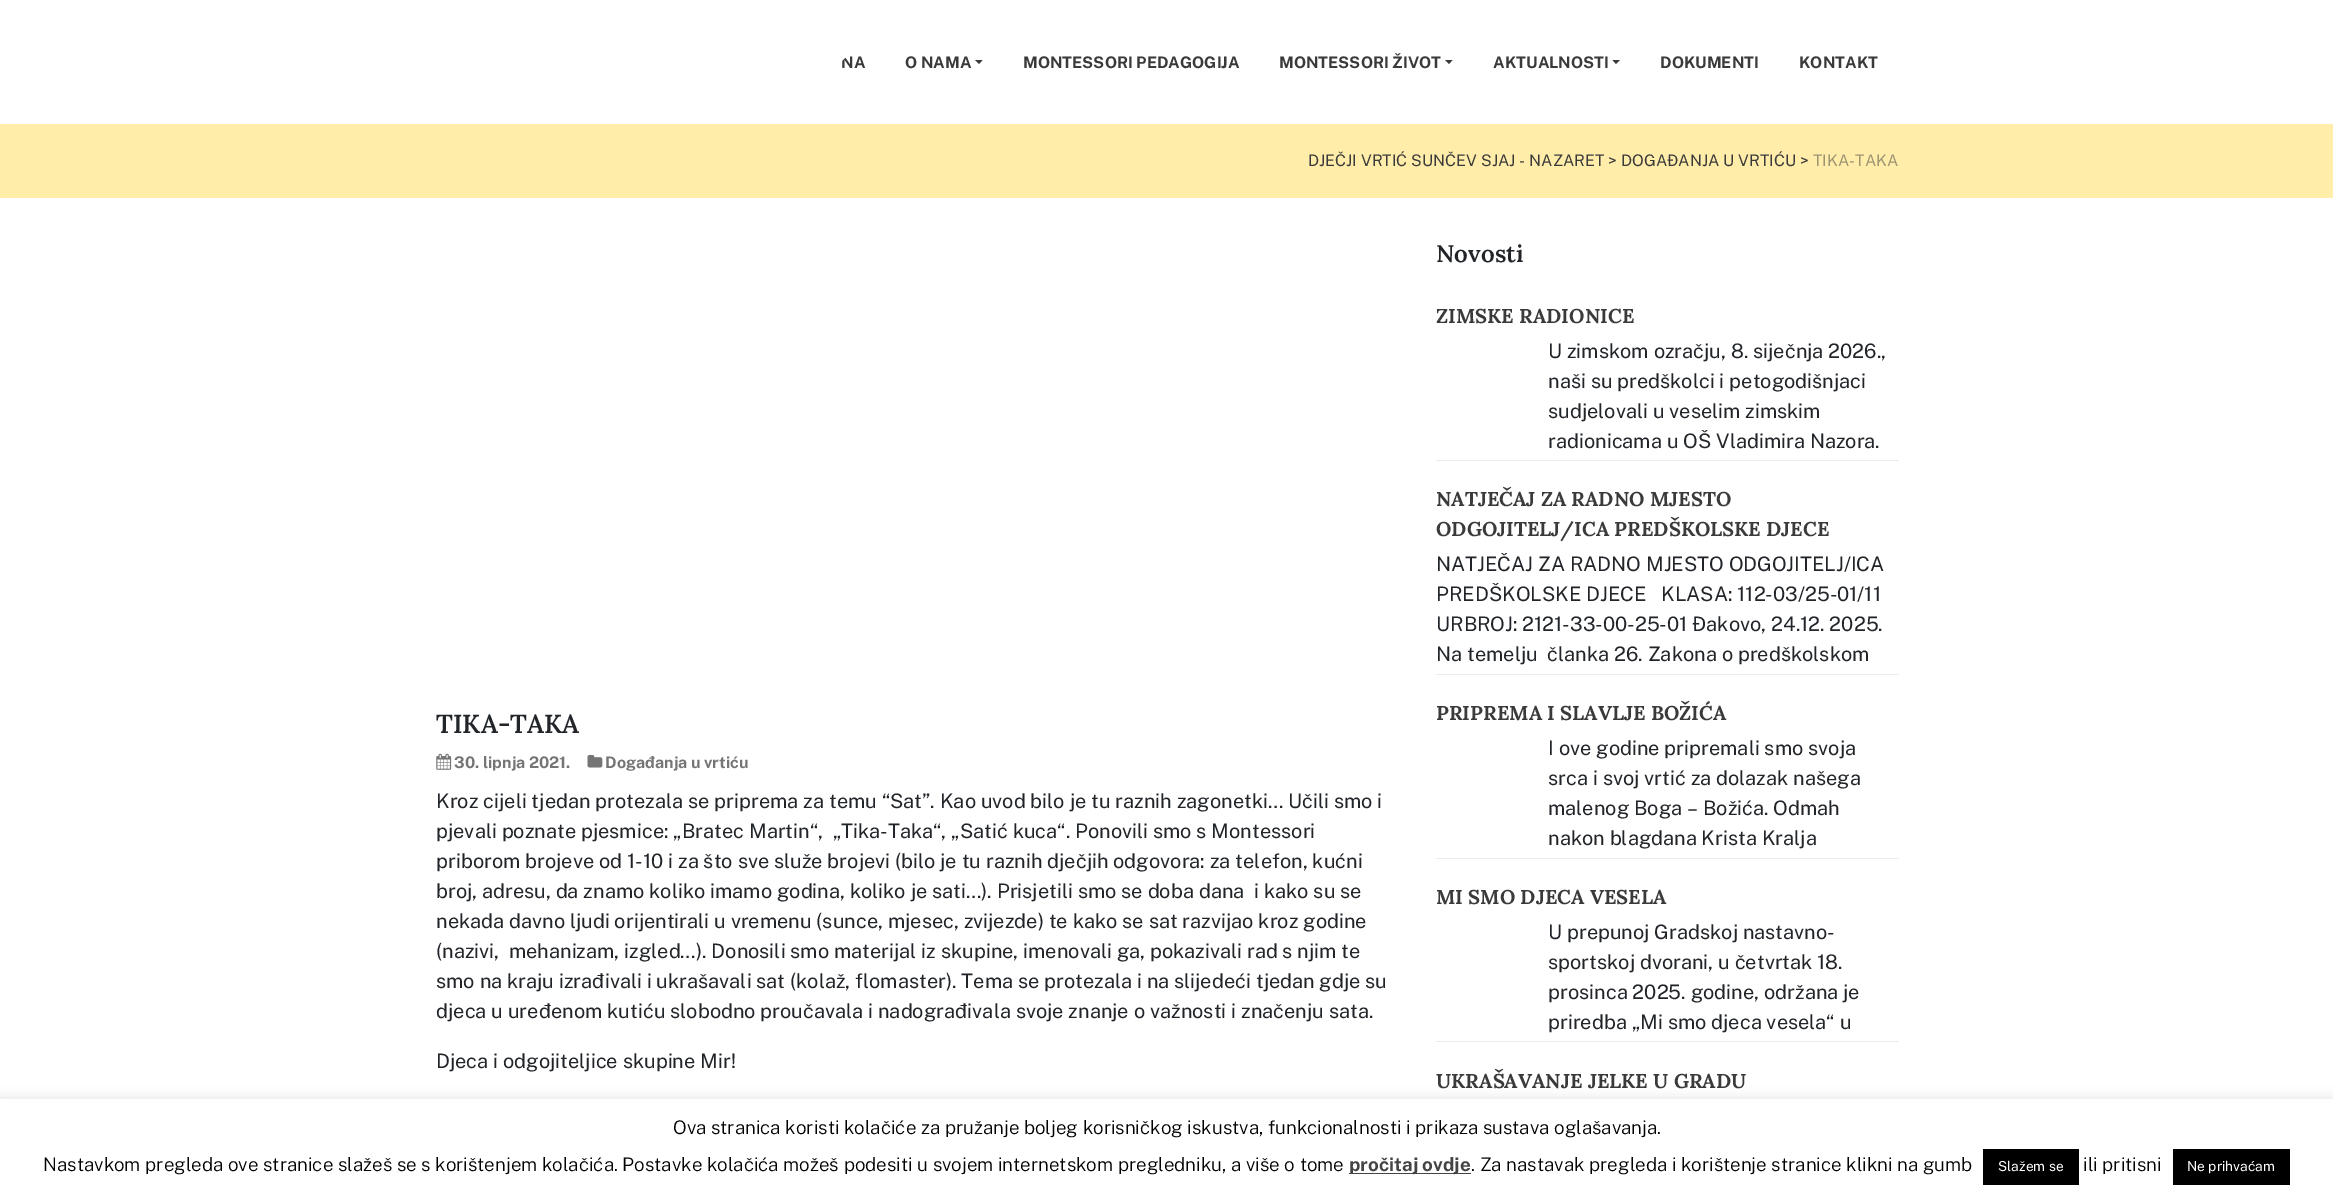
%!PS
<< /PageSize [2333 1199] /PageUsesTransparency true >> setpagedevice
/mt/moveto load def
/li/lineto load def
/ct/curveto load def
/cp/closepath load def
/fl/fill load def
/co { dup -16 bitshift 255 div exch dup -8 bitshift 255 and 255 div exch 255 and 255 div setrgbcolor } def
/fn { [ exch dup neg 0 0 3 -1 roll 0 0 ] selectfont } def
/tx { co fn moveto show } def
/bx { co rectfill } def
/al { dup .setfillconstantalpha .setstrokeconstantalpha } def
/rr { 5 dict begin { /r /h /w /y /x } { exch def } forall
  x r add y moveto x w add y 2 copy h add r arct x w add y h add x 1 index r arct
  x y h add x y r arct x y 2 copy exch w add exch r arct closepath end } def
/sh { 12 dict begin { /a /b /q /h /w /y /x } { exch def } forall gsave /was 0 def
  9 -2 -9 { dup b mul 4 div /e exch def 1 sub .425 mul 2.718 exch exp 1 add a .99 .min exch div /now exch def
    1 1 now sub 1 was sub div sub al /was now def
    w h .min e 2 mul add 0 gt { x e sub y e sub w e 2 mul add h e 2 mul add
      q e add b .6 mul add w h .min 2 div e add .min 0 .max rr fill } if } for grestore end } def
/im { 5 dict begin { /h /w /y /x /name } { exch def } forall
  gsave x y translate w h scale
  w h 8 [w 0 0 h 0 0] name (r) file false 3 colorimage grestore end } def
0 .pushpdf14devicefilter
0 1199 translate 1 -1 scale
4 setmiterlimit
0 0 2333 1199 16#FFFFFF bx
16#3A3A3A co
975 60 mt 982.5 60 li 979 64 li cp fl
1445 60 mt 1452.5 60 li 1449 64 li cp fl
1612.5 60 mt 1620 60 li 1616 64 li cp fl
0 124 2333 74 16#FFEDA9 bx
(media/1.raw) 436 753 16 17 im
(media/2.raw) 587 754 16 14 im
1436 460 463 1 16#EBEBEB bx
1436 674 463 1 16#EBEBEB bx
1436 858 463 1 16#EBEBEB bx
1436 1041 463 1 16#EBEBEB bx
16#ACABAB co
0 1098 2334 101 0 6 .3 sh
0 1099 2333 100 16#FFFFFF bx
1349 1173 122 1 16#444444 bx
1983 1149 96 36 16#000000 bx
2173 1149 117 36 16#000000 bx
(NA) 841 68 /PublicSans-Bold 16 16#3A3A3A tx
16#FFFFFF co
436 0 mt 871 0 li 871 43 836 78 793 78 ct 514 78 li 471 78 436 43 436 0 ct cp fl
(O NAMA) 905 68 /PublicSans-Bold 16 16#3A3A3A tx
(MONTESSORI PEDAGOGIJA) 1023 68 /PublicSans-Bold 16 16#3A3A3A tx
(MONTESSORI ŽIVOT) 1279 68 /PublicSans-Bold 16 16#3A3A3A tx
(AKTUALNOSTI) 1493 68 /PublicSans-Bold 16 16#3A3A3A tx
(DOKUMENTI) 1660 68 /PublicSans-Bold 16 16#3A3A3A tx
(KONTAKT) 1799 68 /PublicSans-Bold 16 16#3A3A3A tx
(DJEČJI VRTIĆ SUNČEV SJAJ - NAZARET > DOGAĐANJA U VRTIĆU >) 1308 166 /PublicSans-Regular 16 16#3A3A3A tx
(TIKA-TAKA) 1813 166 /PublicSans-Regular 16 16#9D9472 tx
(TIKA-TAKA) 436 733 /Lora-SemiBold 26 16#212529 tx
(30. lipnja 2021.) 454 768 /PublicSans-Bold 16 16#757575 tx
(Događanja u vrtiću) 605 768 /PublicSans-Bold 16 16#757575 tx
(Kroz cijeli tjedan protezala se priprema za temu “Sat”. Kao uvod bilo je tu raznih zagonetki… Učili smo i) 436 808 /PublicSans-Regular 20 16#212529 tx
(pjevali poznate pjesmice: „Bratec Martin“,  „Tika-Taka“, „Satić kuca“. Ponovili smo s Montessori) 436 838 /PublicSans-Regular 20 16#212529 tx
(priborom brojeve od 1-10 i za što sve služe brojevi \(bilo je tu raznih dječjih odgovora: za telefon, kućni) 436 868 /PublicSans-Regular 20 16#212529 tx
(broj, adresu, da znamo koliko imamo godina, koliko je sati…\). Prisjetili smo se doba dana  i kako su se) 436 898 /PublicSans-Regular 20 16#212529 tx
(nekada davno ljudi orijentirali u vremenu \(sunce, mjesec, zvijezde\) te kako se sat razvijao kroz godine) 436 928 /PublicSans-Regular 20 16#212529 tx
(\(nazivi,  mehanizam, izgled…\). Donosili smo materijal iz skupine, imenovali ga, pokazivali rad s njim te) 436 958 /PublicSans-Regular 20 16#212529 tx
(smo na kraju izrađivali i ukrašavali sat \(kolaž, flomaster\). Tema se protezala i na slijedeći tjedan gdje su) 436 988 /PublicSans-Regular 20 16#212529 tx
(djeca u uređenom kutiću slobodno proučavala i nadograđivala svoje znanje o važnosti i značenju sata.) 436 1018 /PublicSans-Regular 20 16#212529 tx
(Djeca i odgojiteljice skupine Mir!) 436 1068 /PublicSans-Regular 20 16#212529 tx
(Novosti) 1436 262 /Lora-SemiBold 24 16#212529 tx
(ZIMSKE RADIONICE) 1436 323 /Lora-Bold 20 16#3A3A3A tx
(U zimskom ozračju, 8. siječnja 2026.,) 1548 358 /PublicSans-Regular 20 16#212529 tx
(naši su predškolci i petogodišnjaci) 1548 388 /PublicSans-Regular 20 16#212529 tx
(sudjelovali u veselim zimskim) 1548 418 /PublicSans-Regular 20 16#212529 tx
(radionicama u OŠ Vladimira Nazora.) 1548 448 /PublicSans-Regular 20 16#212529 tx
(NATJEČAJ ZA RADNO MJESTO) 1436 506 /Lora-Bold 20 16#3A3A3A tx
(ODGOJITELJ/ICA PREDŠKOLSKE DJECE) 1436 536 /Lora-Bold 20 16#3A3A3A tx
(NATJEČAJ ZA RADNO MJESTO ODGOJITELJ/ICA) 1436 571 /PublicSans-Regular 20 16#212529 tx
(PREDŠKOLSKE DJECE   KLASA: 112-03/25-01/11) 1436 601 /PublicSans-Regular 20 16#212529 tx
(URBROJ: 2121-33-00-25-01 Đakovo, 24.12. 2025.) 1436 631 /PublicSans-Regular 20 16#212529 tx
(Na temelju  članka 26. Zakona o predškolskom) 1436 661 /PublicSans-Regular 20 16#212529 tx
(PRIPREMA I SLAVLJE BOŽIĆA) 1436 720 /Lora-Bold 20 16#3A3A3A tx
(I ove godine pripremali smo svoja) 1548 755 /PublicSans-Regular 20 16#212529 tx
(srca i svoj vrtić za dolazak našega) 1548 785 /PublicSans-Regular 20 16#212529 tx
(malenog Boga – Božića. Odmah) 1548 815 /PublicSans-Regular 20 16#212529 tx
(nakon blagdana Krista Kralja) 1548 845 /PublicSans-Regular 20 16#212529 tx
(MI SMO DJECA VESELA) 1436 904 /Lora-Bold 20 16#3A3A3A tx
(U prepunoj Gradskoj nastavno-) 1548 939 /PublicSans-Regular 20 16#212529 tx
(sportskoj dvorani, u četvrtak 18.) 1548 969 /PublicSans-Regular 20 16#212529 tx
(prosinca 2025. godine, održana je) 1548 999 /PublicSans-Regular 20 16#212529 tx
(priredba „Mi smo djeca vesela“ u) 1548 1029 /PublicSans-Regular 20 16#212529 tx
(UKRAŠAVANJE JELKE U GRADU) 1436 1088 /Lora-Bold 20 16#3A3A3A tx
(Ova stranica koristi kolačiće za pružanje boljeg korisničkog iskustva, funkcionalnosti i prikaza sustava oglašavanja.) 673 1134 /PublicSans-Light 18.75 16#000000 tx
(Nastavkom pregleda ove stranice slažeš se s korištenjem kolačića. Postavke kolačića možeš podesiti u svojem internetskom pregledniku, a više o tome) 43 1171 /PublicSans-Light 18.75 16#000000 tx
(pročitaj ovdje) 1349 1171 /PublicSans-Bold 18.75 16#444444 tx
(. Za nastavak pregleda i korištenje stranice klikni na gumb) 1471 1171 /PublicSans-Light 18.75 16#000000 tx
(Slažem se) 1998 1171 /PublicSans-Regular 13.75 16#FFFFFF tx
(ili pritisni) 2083 1171 /PublicSans-Light 18.75 16#000000 tx
(Ne prihvaćam) 2187 1171 /PublicSans-Regular 13.75 16#FFFFFF tx
.poppdf14devicefilter showpage
